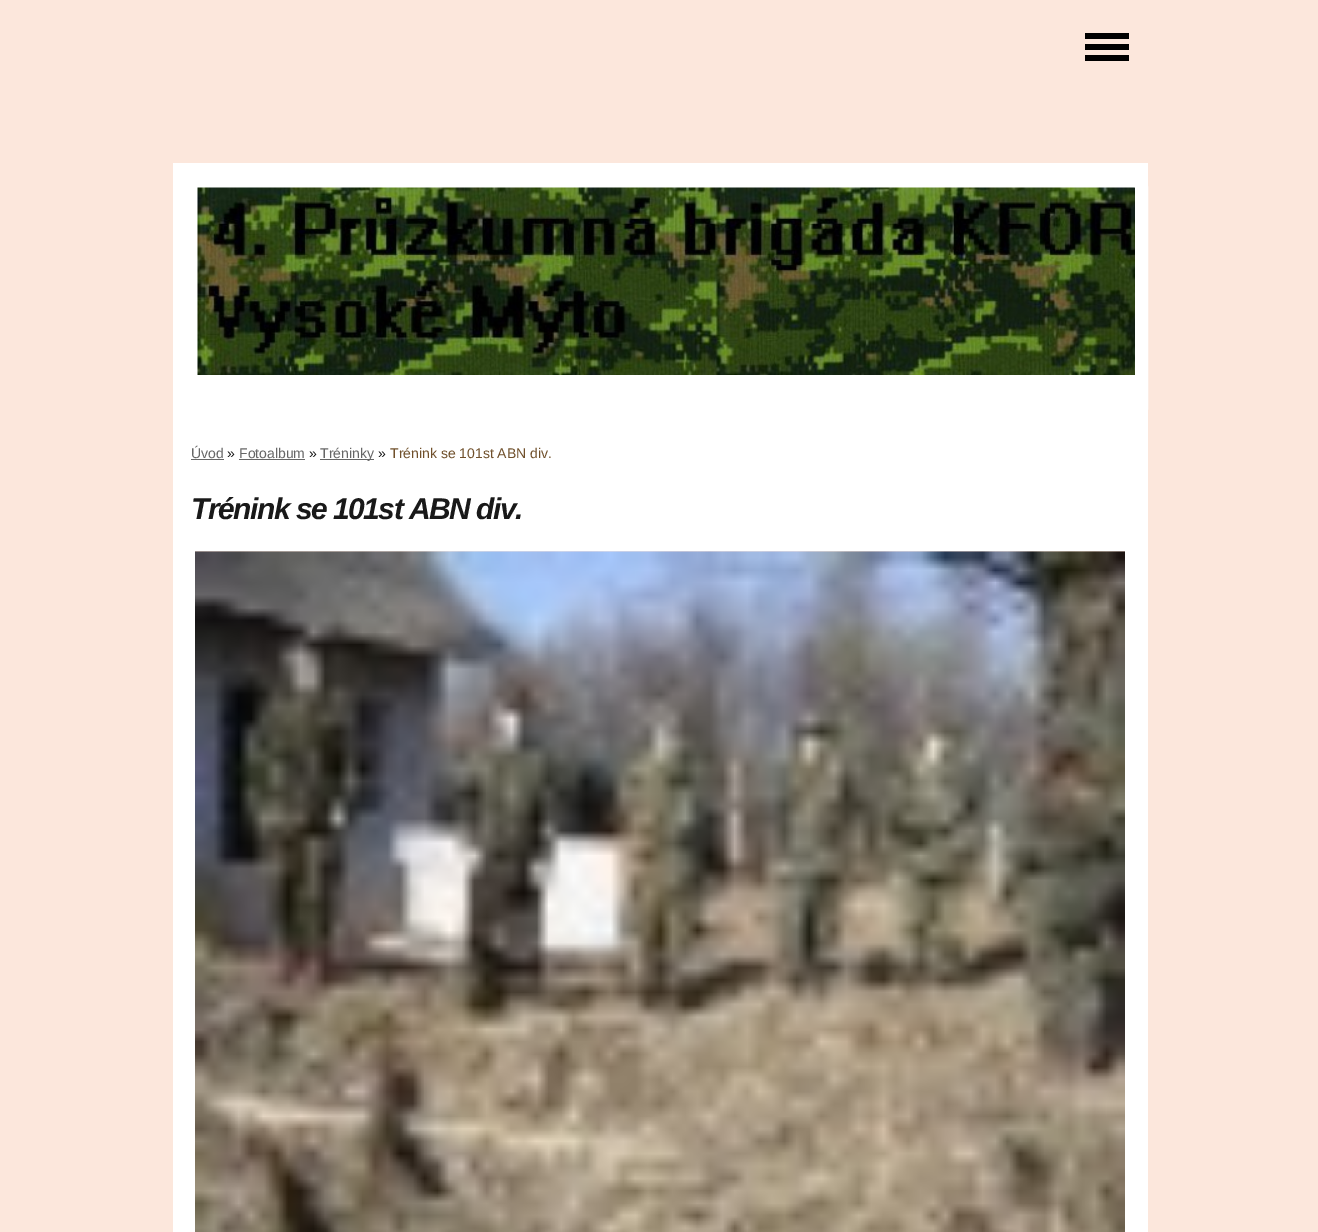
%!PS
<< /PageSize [1318 1232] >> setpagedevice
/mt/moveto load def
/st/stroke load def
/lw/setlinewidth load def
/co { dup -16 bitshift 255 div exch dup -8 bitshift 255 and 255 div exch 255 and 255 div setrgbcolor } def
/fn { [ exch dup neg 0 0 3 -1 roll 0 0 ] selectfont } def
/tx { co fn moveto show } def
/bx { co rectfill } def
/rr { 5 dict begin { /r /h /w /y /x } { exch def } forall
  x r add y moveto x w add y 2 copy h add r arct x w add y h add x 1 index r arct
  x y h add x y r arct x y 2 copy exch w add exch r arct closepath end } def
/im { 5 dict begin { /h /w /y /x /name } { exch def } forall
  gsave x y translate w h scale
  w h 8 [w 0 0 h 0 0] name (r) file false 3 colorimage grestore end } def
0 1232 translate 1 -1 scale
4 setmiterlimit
0 0 1318 1232 16#FCE7DC bx
173 163 975 1069 16#FFFFFF bx
1085 33 44 6 16#000000 bx
1085 44 44 6 16#000000 bx
1085 55 44 6 16#000000 bx
(media/1.raw) 197 187 951 188 im
16#FFFFFF co
13 lw
179.5 169.5 962 257 18.5 rr st
191 459 33 1 16#666666 bx
239 459 66 1 16#666666 bx
320 459 54 1 16#666666 bx
195 551 930 1 16#FCE7DC bx
(media/2.raw) 195 551 930 681 im
(Úvod) 191 458 /LiberationSans-Regular 14 16#666666 tx
(») 227 458 /LiberationSans-Regular 14 16#191919 tx
(Fotoalbum) 239 458 /LiberationSans-Regular 14 16#666666 tx
(») 309 458 /LiberationSans-Regular 14 16#191919 tx
(Tréninky) 320 458 /LiberationSans-Regular 14 16#666666 tx
(») 378 458 /LiberationSans-Regular 14 16#191919 tx
(Trénink se 101st ABN div.) 390 458 /LiberationSans-Regular 14 16#70502B tx
/LiberationSans-BoldItalic 30 fn
16#191919 co
191 519 mt -1.5 0 (Trénink se 101st ABN div.) ashow
showpage
